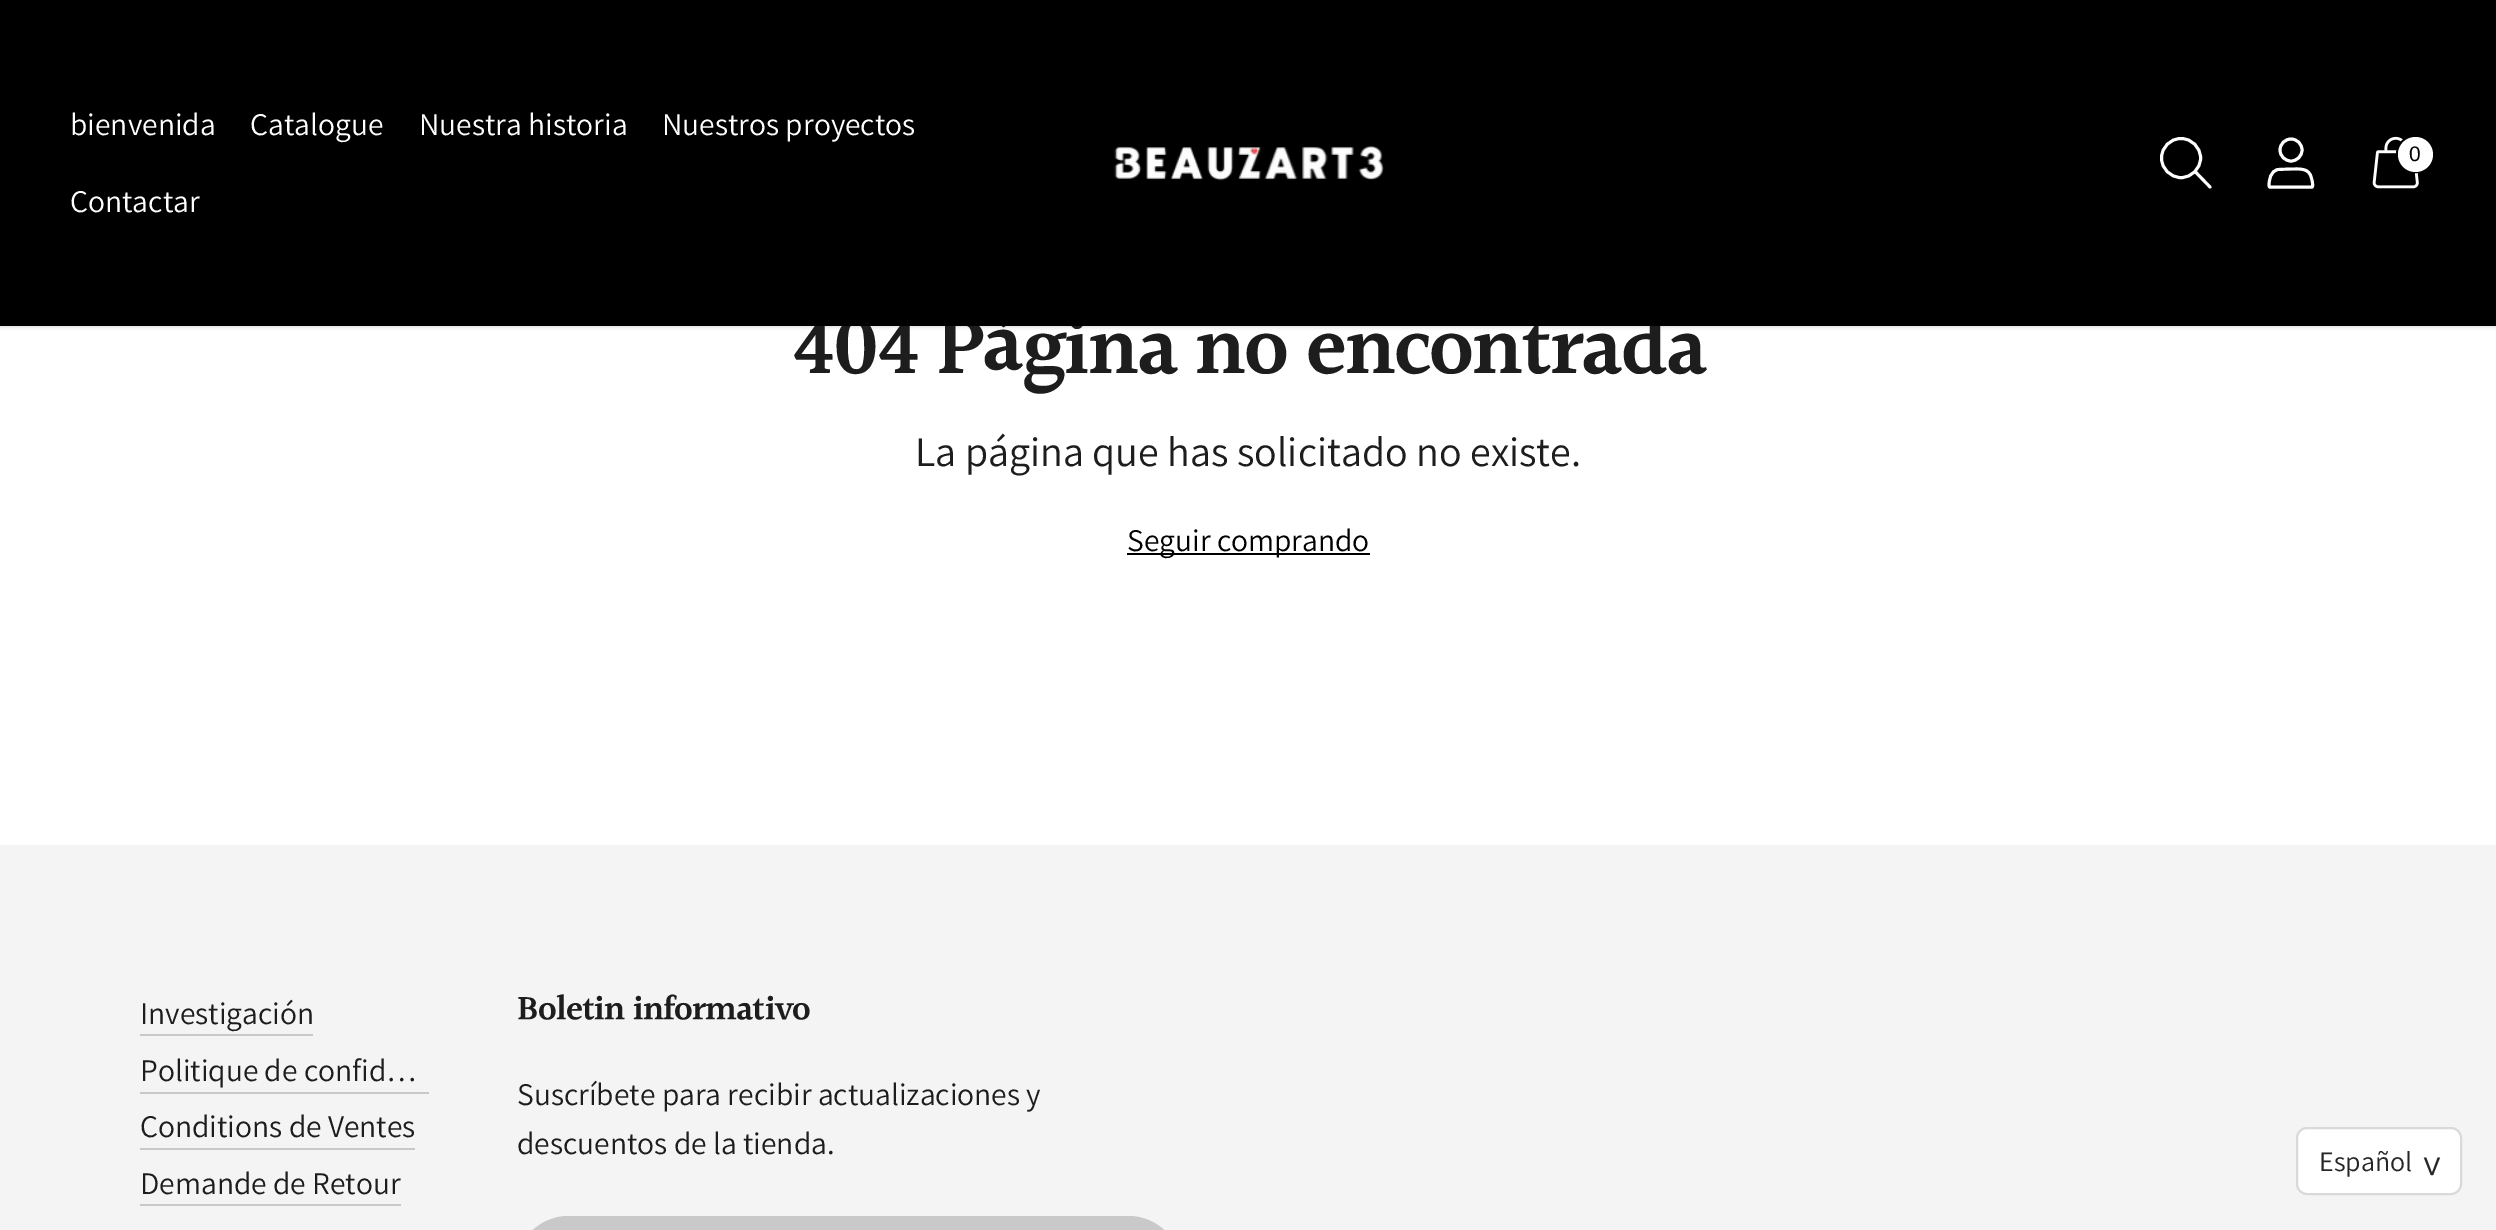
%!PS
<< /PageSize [2496 1230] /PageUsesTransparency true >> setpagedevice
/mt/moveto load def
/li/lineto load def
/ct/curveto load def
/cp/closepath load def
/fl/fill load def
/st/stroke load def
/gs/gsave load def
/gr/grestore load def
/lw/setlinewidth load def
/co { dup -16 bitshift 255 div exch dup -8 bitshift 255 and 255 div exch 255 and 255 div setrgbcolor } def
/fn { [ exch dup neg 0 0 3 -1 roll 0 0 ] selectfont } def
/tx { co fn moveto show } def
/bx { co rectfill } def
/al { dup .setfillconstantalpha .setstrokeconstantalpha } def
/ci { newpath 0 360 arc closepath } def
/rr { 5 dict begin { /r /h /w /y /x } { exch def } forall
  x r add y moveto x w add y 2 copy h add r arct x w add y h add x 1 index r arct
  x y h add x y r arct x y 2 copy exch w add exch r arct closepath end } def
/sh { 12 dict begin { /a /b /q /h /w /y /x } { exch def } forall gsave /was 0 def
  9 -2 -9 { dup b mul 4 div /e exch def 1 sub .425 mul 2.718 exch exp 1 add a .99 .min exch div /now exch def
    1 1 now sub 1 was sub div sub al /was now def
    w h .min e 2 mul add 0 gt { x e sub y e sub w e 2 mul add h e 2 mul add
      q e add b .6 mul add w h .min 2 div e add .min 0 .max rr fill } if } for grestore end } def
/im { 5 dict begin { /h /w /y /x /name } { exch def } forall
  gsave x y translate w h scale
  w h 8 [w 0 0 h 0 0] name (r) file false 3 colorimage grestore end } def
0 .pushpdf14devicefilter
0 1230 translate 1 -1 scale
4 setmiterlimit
0 0 2496 1230 16#FFFFFF bx
16#000000 co
0 2 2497 325 0 2 .15 sh
1127 553 243 2 16#000000 bx
0 845 2496 385 16#F4F4F4 bx
140 1034 173 2 16#C9C9C9 bx
140 1092 289 2 16#C9C9C9 bx
140 1148 275 2 16#C9C9C9 bx
140 1204 261 2 16#C9C9C9 bx
516 1216 665 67 52.5 rr fl
16#FFFFFF co
2297 1128 164 66 10 rr gs fl gr
16#D9D9D9 co
2 lw
st
/Halant-SemiBold 84 fn
16#1D1D1D co
792 377 mt -2.1 0 (404 Página no encontrada) ashow
0 0 2496 326 16#000000 bx
(media/2.raw) 2372 136 47 53 im
2415 154 18 ci st
16#FFFFFF co
2415.5 154.5 17.5 ci fl
(0) 2409 161 /LiberationSans-Regular 21 16#000000 tx
16#FFFFFF co
2.9 lw
1 setlinecap
1 setlinejoin
2312 187 mt 2313.5 187 2312 179.5 2311.5 178.5 ct 2309.5 167.5 2299.5 169 2290.5 169 ct 2278 169.5 li 2270.5 171 2269 179.5 2269 186 ct 2269.5 187 li cp st
0 setlinecap
0 setlinejoin
2291 150 11 ci st
2181 158 19.5 ci st
1 setlinecap
1 setlinejoin
2196 172.5 mt 2210 187 li st
(media/1.raw) 1114 146 270 35 im
(Contactar) 70 212 /Assistant-Regular 31.5 16#FFFFFF tx
(Nuestros proyectos) 662 135 /Assistant-Regular 31.5 16#FFFFFF tx
(Nuestra historia) 419 135 /Assistant-Regular 31.5 16#FFFFFF tx
(Catalogue) 250 135 /Assistant-Regular 31.5 16#FFFFFF tx
(bienvenida) 70 135 /Assistant-Regular 31.5 16#FFFFFF tx
(La página que has solicitado no existe.) 915 466 /Assistant-Regular 42 16#1D1D1D tx
(Seguir comprando) 1127 551 /Assistant-Regular 31.5 16#000000 tx
(Investigación) 140 1024 /Assistant-Regular 31.5 16#1D1D1D tx
(Politique de confid…) 140 1081 /Assistant-Regular 31.5 16#1D1D1D tx
(Conditions de Ventes) 140 1137 /Assistant-Regular 31.5 16#1D1D1D tx
(Demande de Retour) 140 1194 /Assistant-Regular 31.5 16#1D1D1D tx
/Halant-SemiBold 35 fn
517 1021 mt -.9 0 (Boletin informativo) ashow
(Suscríbete para recibir actualizaciones y) 517 1105 /Assistant-Regular 31.5 16#1D1D1D tx
(descuentos de la tienda.) 517 1154 /Assistant-Regular 31.5 16#1D1D1D tx
(Español) 2319 1171 /Assistant-Regular 28 16#262626 tx
/Assistant-Regular 42 fn
gs 2418 1156 translate 90 rotate 0 0 mt -10 0 (>) ashow gr
.poppdf14devicefilter showpage
